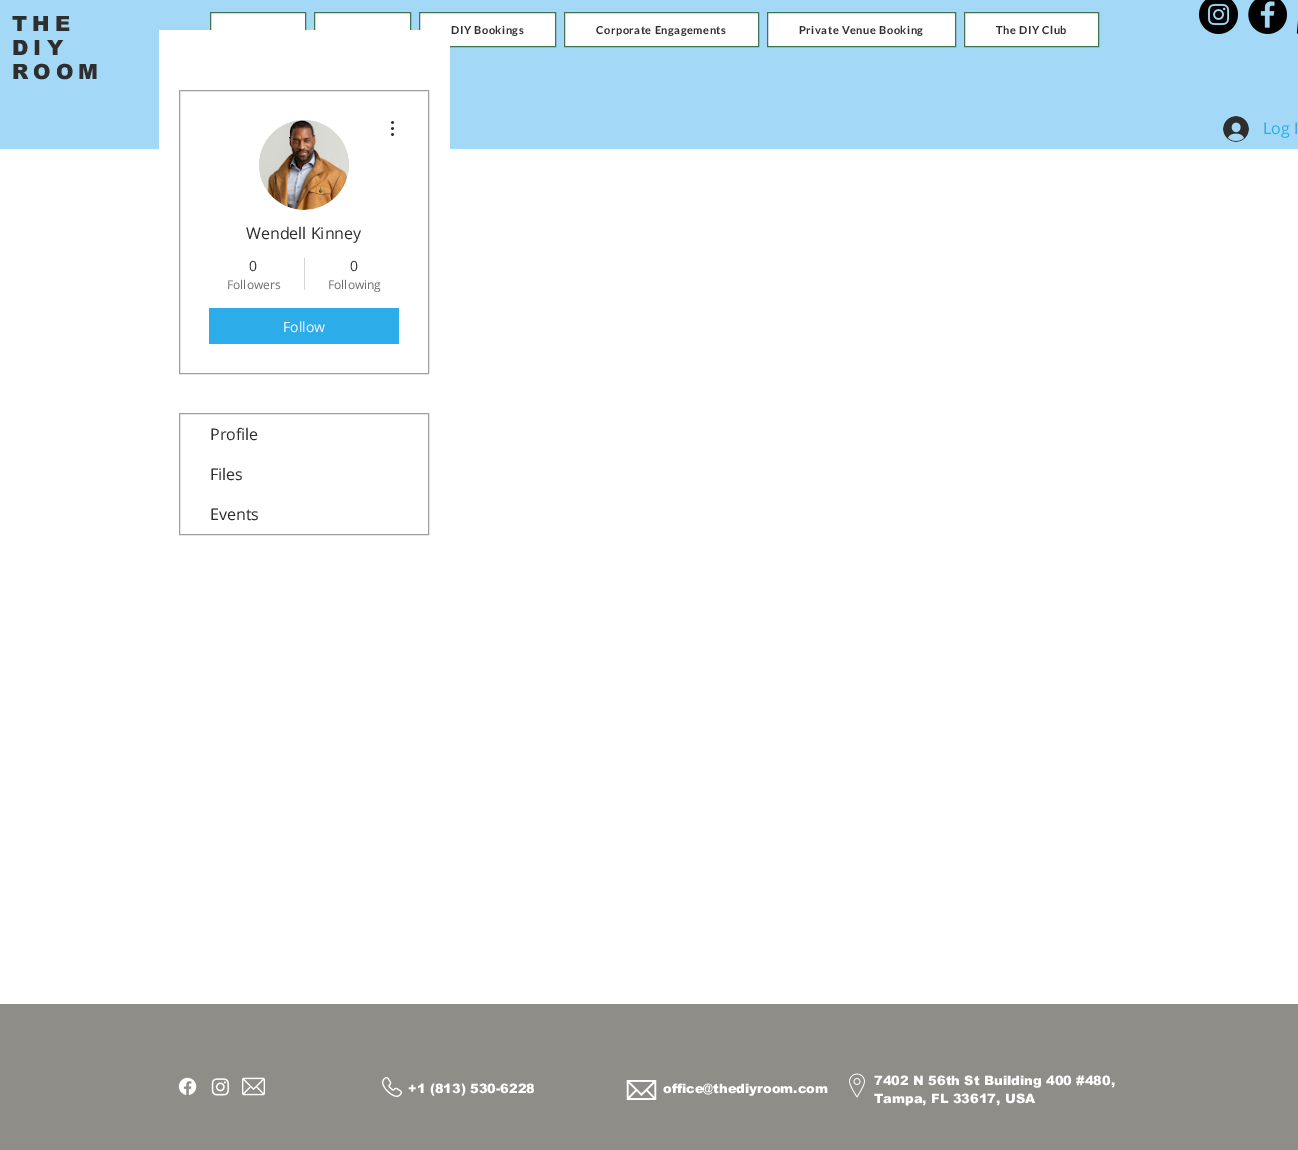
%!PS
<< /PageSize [1298 1150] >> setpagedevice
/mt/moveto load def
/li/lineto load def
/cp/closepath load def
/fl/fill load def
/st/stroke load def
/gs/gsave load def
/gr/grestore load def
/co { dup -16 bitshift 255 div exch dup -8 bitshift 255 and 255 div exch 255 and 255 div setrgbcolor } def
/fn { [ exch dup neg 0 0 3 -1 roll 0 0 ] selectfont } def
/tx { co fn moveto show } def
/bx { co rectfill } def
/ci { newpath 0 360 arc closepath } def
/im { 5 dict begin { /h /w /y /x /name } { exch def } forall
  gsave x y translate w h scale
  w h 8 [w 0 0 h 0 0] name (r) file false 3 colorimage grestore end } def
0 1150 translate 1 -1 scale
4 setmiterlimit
0 0 1298 1150 16#FFFFFF bx
0 0 1298 149 16#A3D9F6 bx
211 13 94 17 16#FFFFFF bx
16#3F7652 co
210.5 12.5 95 34 rectstroke
315 13 95 17 16#FFFFFF bx
16#3F7652 co
314.5 12.5 96 34 rectstroke
16#FFFFFF co
419.5 12.5 mt 555.5 12.5 li 555.5 46.5 li 419.5 46.5 li cp gs fl gr
16#3F7652 co
st
16#FFFFFF co
564.5 12.5 mt 758.5 12.5 li 758.5 46.5 li 564.5 46.5 li cp gs fl gr
16#3F7652 co
st
16#FFFFFF co
767.5 12.5 mt 955.5 12.5 li 955.5 46.5 li 767.5 46.5 li cp gs fl gr
16#3F7652 co
st
16#FFFFFF co
964.5 12.5 mt 1098.5 12.5 li 1098.5 46.5 li 964.5 46.5 li cp gs fl gr
16#3F7652 co
st
(media/1.raw) 1199 0 39 34 im
(media/2.raw) 1248 0 39 34 im
(media/3.raw) 1296 21 2 13 im
(media/4.raw) 1223 116 26 26 im
159 30 291 119 16#FFFFFF bx
16#A0A09F co
179.5 90.5 249 283 rectstroke
16#D8D8D8 co
304 165 45 ci fl
(media/5.raw) 259 120 90 90 im
(media/6.raw) 391 121 3 15 im
304 258 1 32 16#D5D5D5 bx
209 308 190 36 16#2CACE8 bx
16#A0A09F co
179.5 413.5 249 121 rectstroke
0 1004 1298 146 16#8E8D88 bx
(media/7.raw) 178 1077 19 19 im
(media/8.raw) 211 1078 19 18 im
(media/9.raw) 242 1077 23 19 im
(media/10.raw) 382 1077 20 20 im
(media/11.raw) 626 1080 31 20 im
(media/12.raw) 849 1073 16 25 im
/arial-Black 21 fn
16#2F2E2E co
12 31 mt 5 0 (THE) ashow
12 55 mt 5 0 (DIY) ashow
12 79 mt 5 0 (ROOM) ashow
/Lato-Bold 11 fn
451 34 mt .55 0 (DIY Bookings) ashow
596 34 mt .55 0 (Corporate Engagements) ashow
799 34 mt .55 0 (Private Venue Booking) ashow
996 34 mt .55 0 (The DIY Club) ashow
(Log I) 1263 134 /OpenSans-Regular 16 16#2CACE8 tx
(Wendell Kinney) 246 239 /OpenSans-Regular 16 16#2F2E2E tx
(0) 249 271 /OpenSans-Regular 14 16#2F2E2E tx
(Followers) 227 289 /OpenSans-Regular 12 16#6D6D6D tx
(0) 350 271 /OpenSans-Regular 14 16#2F2E2E tx
(Following) 328 289 /OpenSans-Regular 12 16#6D6D6D tx
(Follow) 283 332 /OpenSans-Regular 14 16#FFFFFF tx
(Profile) 210 440 /OpenSans-Regular 16 16#2F2E2E tx
(Files) 210 480 /OpenSans-Regular 16 16#2F2E2E tx
(Events) 210 520 /OpenSans-Regular 16 16#2F2E2E tx
(+1 \(813\) 530-6228) 408 1093 /arial-Black 13 16#FFFFFF tx
(office@thediyroom.com) 663 1093 /arial-Black 13 16#FFFFFF tx
(7402 N 56th St Building 400 #480,) 874 1085 /arial-Black 13 16#FFFFFF tx
(Tampa, FL 33617, USA) 874 1103 /arial-Black 13 16#FFFFFF tx
showpage
